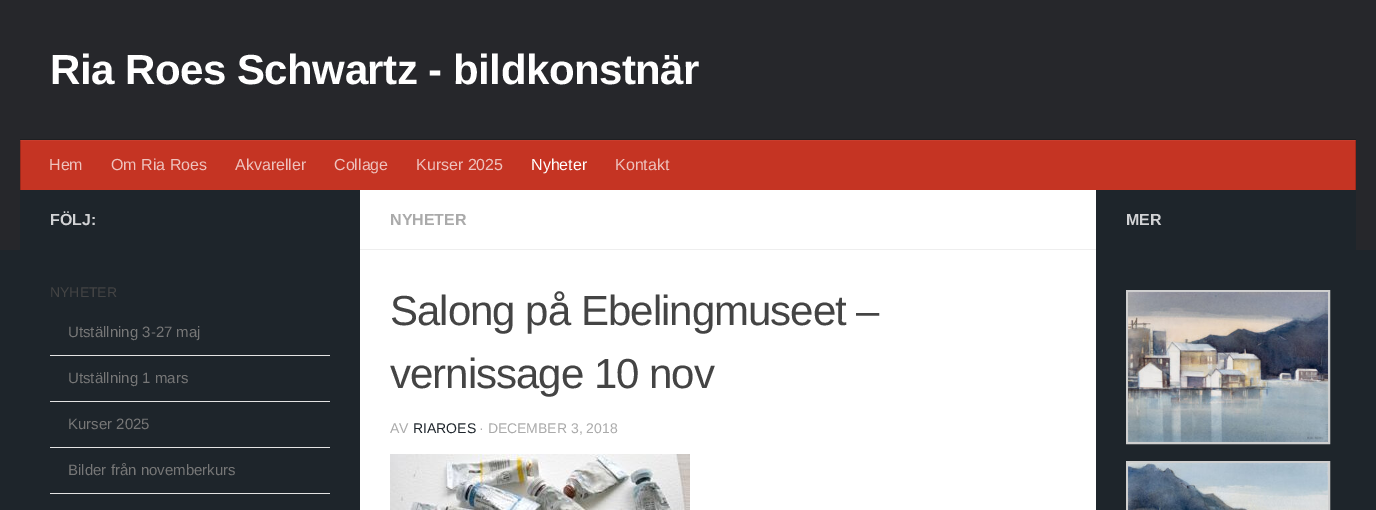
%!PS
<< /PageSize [1376 510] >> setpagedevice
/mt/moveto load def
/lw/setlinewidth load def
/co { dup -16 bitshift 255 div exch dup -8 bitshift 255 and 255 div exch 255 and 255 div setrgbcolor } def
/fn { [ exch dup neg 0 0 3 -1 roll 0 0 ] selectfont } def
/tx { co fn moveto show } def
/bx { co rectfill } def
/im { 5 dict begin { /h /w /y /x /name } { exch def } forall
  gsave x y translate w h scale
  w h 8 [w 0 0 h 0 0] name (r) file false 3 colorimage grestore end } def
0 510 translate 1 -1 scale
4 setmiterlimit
0 0 1376 510 16#1E252B bx
0 0 1376 250 16#26272B bx
20 139 1336 1 16#1E1F22 bx
21 141 1334 49 16#C53423 bx
20 140 1336 1 16#C83E2E bx
1355 140 1 50 16#9E2A1C bx
1355 140 1 1 16#A33527 bx
20 140 1 50 16#9E2A1C bx
20 140 1 1 16#A33527 bx
360 190 736 320 16#FFFFFF bx
20 190 340 60 16#1E252B bx
1096 190 260 60 16#1E252B bx
50 355 280 1 16#E4E4E4 bx
50 401 280 1 16#E4E4E4 bx
50 447 280 1 16#E4E4E4 bx
50 493 280 1 16#E4E4E4 bx
360 249 736 1 16#EEEEEE bx
(media/1.raw) 390 454 300 56 im
16#CFCFCF co
2 lw
1127 291 202 152 rectstroke
(media/2.raw) 1128 292 200 150 im
1127 462 202 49 rectstroke
(media/3.raw) 1128 463 200 47 im
/LiberationSans-Bold 42 fn
16#FFFFFF co
50 84 mt -.5 0 (Ria Roes Schwartz - bildkonstnär) ashow
(Hem) 49 170 /LiberationSans-Regular 16 16#EEC2BD tx
(Om Ria Roes) 111 170 /LiberationSans-Regular 16 16#EEC2BD tx
(Akvareller) 235 170 /LiberationSans-Regular 16 16#EEC2BD tx
(Collage) 334 170 /LiberationSans-Regular 16 16#EEC2BD tx
(Kurser 2025) 416 170 /LiberationSans-Regular 16 16#EEC2BD tx
(Nyheter) 531 170 /LiberationSans-Regular 16 16#FFFFFF tx
(Kontakt) 615 170 /LiberationSans-Regular 16 16#EEC2BD tx
(FÖLJ:) 50 225 /LiberationSans-Bold 16 16#D2D3D5 tx
(NYHETER) 50 297 /LiberationSans-Regular 14 16#444444 tx
(Utställning 3-27 maj) 68 337 /LiberationSans-Regular 15 16#777777 tx
(Utställning 1 mars) 68 383 /LiberationSans-Regular 15 16#777777 tx
(Kurser 2025) 68 429 /LiberationSans-Regular 15 16#777777 tx
(Bilder från novemberkurs) 68 475 /LiberationSans-Regular 15 16#777777 tx
(NYHETER) 390 225 /LiberationSans-Bold 16 16#AAAAAA tx
/LiberationSans-Regular 42 fn
16#444444 co
390 325 mt -1 0 (Salong på Ebelingmuseet –) ashow
390 388 mt -1 0 (vernissage 10 nov) ashow
(AV) 390 433 /LiberationSans-Regular 14 16#AAAAAA tx
(RIAROES) 413 433 /LiberationSans-Regular 14 16#1E252B tx
(· DECEMBER 3, 2018) 479 433 /LiberationSans-Regular 14 16#AAAAAA tx
(MER) 1126 225 /LiberationSans-Bold 16 16#D2D3D5 tx
showpage
